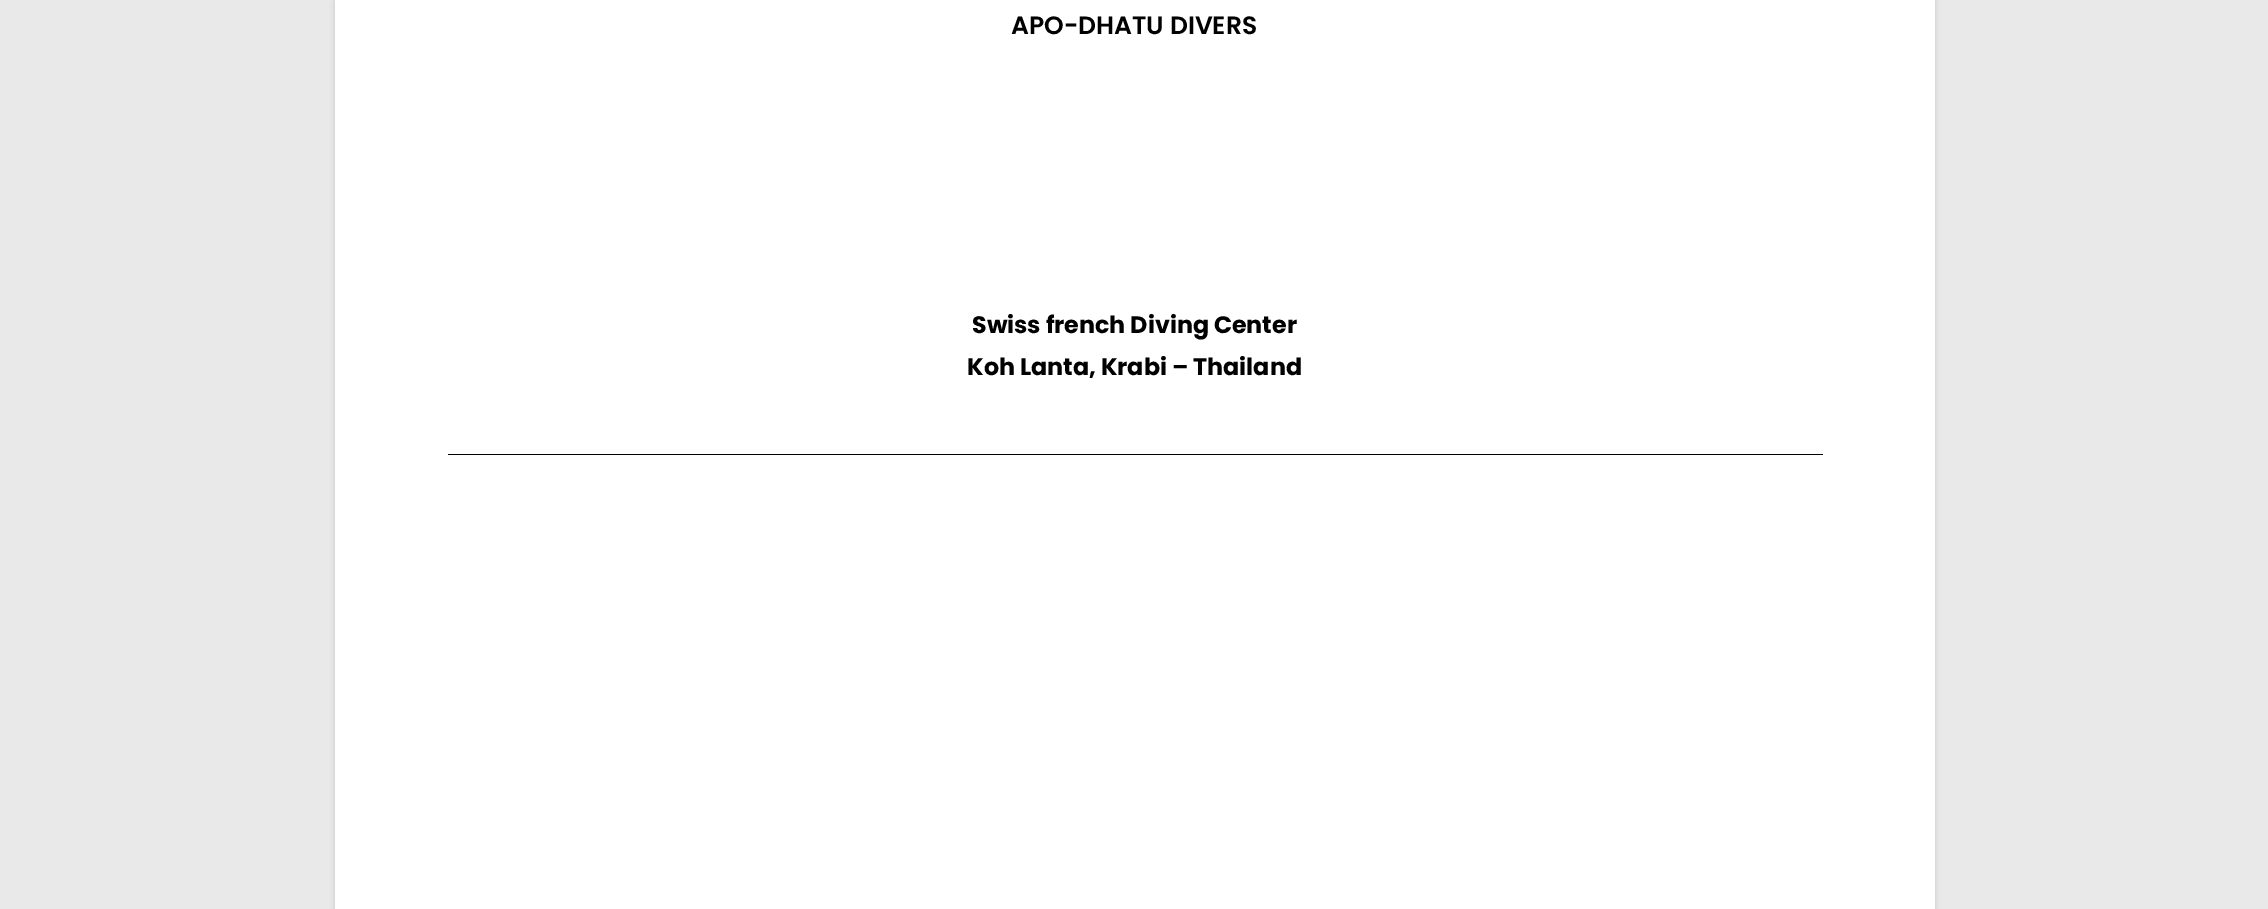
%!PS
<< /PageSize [2268 909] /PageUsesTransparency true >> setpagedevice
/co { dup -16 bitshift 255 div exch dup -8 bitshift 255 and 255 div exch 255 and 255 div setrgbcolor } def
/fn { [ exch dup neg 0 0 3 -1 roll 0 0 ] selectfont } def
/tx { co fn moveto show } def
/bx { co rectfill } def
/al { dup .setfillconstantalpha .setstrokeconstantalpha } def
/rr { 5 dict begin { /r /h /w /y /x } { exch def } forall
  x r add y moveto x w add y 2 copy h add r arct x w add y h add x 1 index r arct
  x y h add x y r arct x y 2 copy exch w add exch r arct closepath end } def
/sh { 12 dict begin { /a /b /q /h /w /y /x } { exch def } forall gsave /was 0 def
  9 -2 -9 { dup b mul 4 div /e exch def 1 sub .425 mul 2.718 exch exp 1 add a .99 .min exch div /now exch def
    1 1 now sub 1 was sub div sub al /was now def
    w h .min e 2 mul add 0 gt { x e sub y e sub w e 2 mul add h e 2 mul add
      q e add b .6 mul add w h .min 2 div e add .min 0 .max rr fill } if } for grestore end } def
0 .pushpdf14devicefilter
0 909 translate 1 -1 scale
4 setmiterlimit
0 0 2268 909 16#E9E9E9 bx
16#000000 co
335 1 1600 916 0 2.5 .15 sh
335 0 1600 909 16#FFFFFF bx
448 454 1375 1 16#000000 bx
(APO-DHATU DIVERS) 1011 34 /Poppins-SemiBold 25 16#000000 tx
(Swiss french Diving Center) 972 333 /Poppins-Bold 23.75 16#000000 tx
(Koh Lanta, Krabi – Thailand) 967 375 /Poppins-Bold 23.75 16#000000 tx
.poppdf14devicefilter showpage
